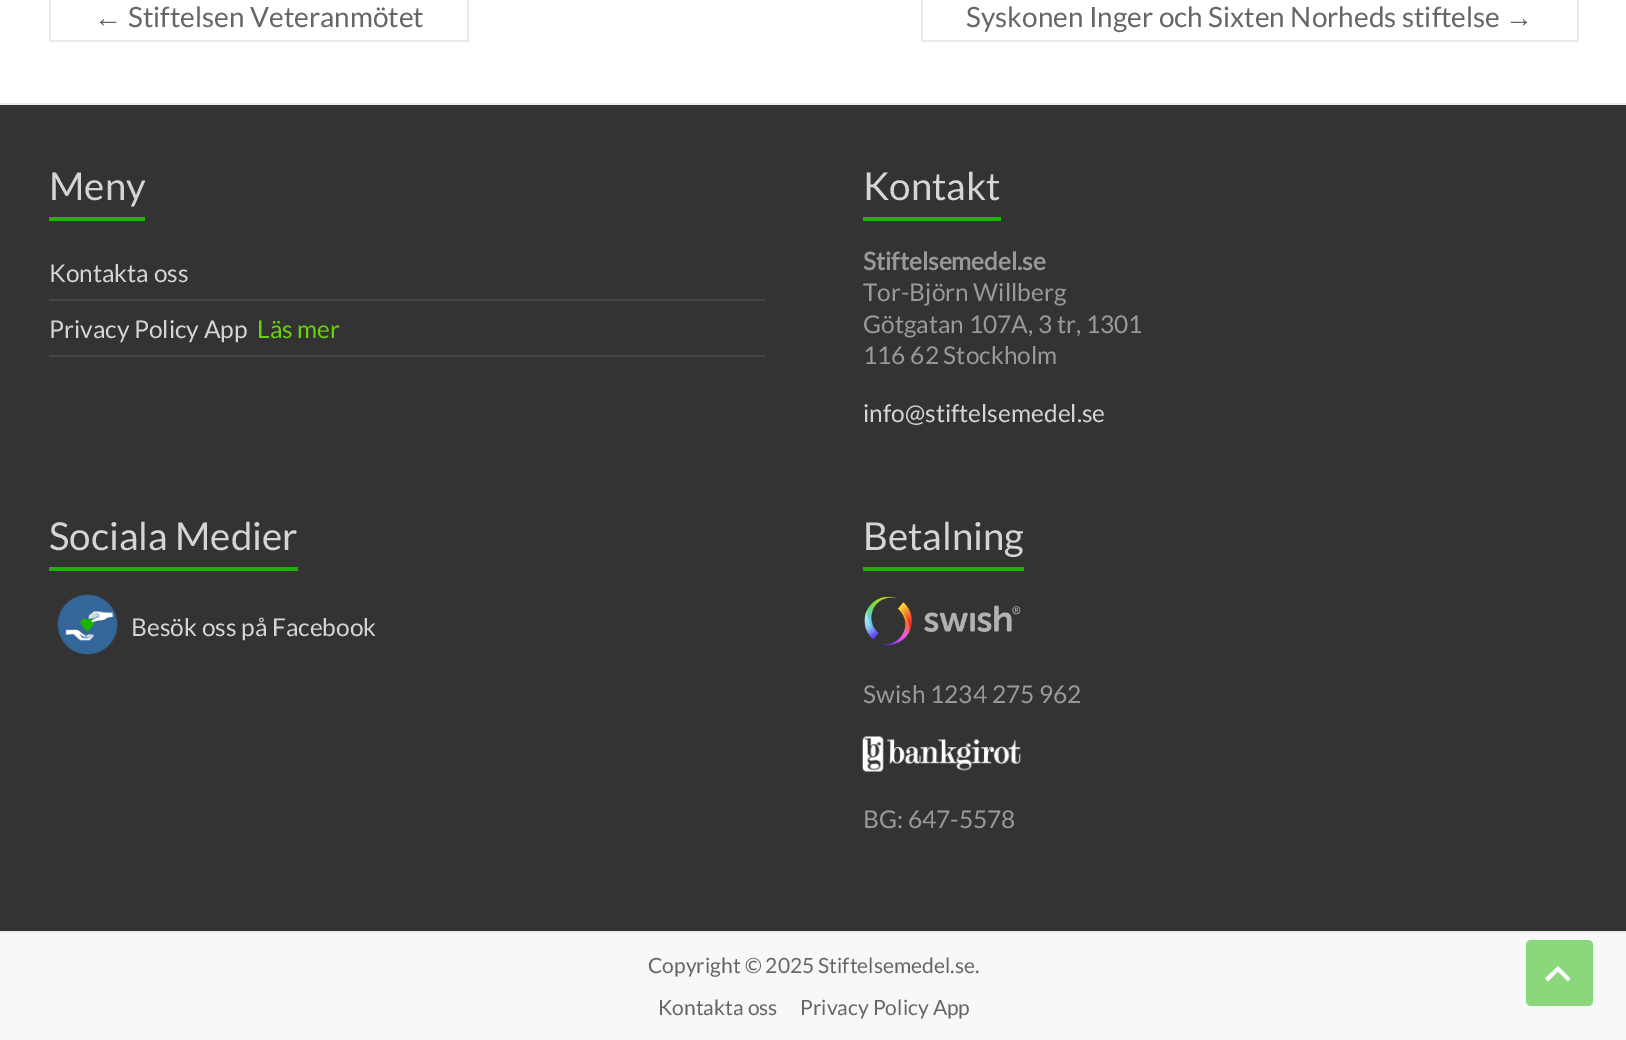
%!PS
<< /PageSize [1626 1040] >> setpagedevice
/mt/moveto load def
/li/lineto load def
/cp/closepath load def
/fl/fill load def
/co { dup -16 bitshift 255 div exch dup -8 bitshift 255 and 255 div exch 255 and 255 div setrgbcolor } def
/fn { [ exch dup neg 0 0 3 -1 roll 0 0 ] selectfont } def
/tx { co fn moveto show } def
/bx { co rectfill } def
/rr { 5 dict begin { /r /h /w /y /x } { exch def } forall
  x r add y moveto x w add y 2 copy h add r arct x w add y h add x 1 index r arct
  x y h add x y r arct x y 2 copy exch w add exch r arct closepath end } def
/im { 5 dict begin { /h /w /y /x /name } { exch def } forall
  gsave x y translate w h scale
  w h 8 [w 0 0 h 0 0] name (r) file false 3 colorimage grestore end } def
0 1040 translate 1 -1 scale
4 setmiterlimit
0 0 1626 1040 16#FFFFFF bx
49 40 74 2 16#EAEAEA bx
49 0 2 42 16#EAEAEA bx
467 0 2 42 16#EAEAEA bx
123 40 346 2 16#EAEAEA bx
921 40 584 2 16#EAEAEA bx
921 0 2 42 16#EAEAEA bx
1577 0 2 42 16#EAEAEA bx
1505 40 74 2 16#EAEAEA bx
0 105 1626 826 16#333333 bx
0 103 1626 2 16#EAEAEA bx
49 217 96 4 16#1BB500 bx
49 299 716 2 16#444444 bx
49 355 716 2 16#444444 bx
863 217 138 4 16#1BB500 bx
49 567 249 4 16#1BB500 bx
(media/1.raw) 57 594 61 61 im
863 567 161 4 16#1BB500 bx
(media/2.raw) 864 596 157 50 im
(media/3.raw) 862 736 159 36 im
0 933 1626 107 16#F8F8F8 bx
0 931 1626 2 16#EAEAEA bx
16#8AD77C co
1526 940 67 66 5 rr fl
16#FCFCFC co
1568 981.5 mt 1558 971.5 li 1548 981.5 li 1545 978.5 li 1558 966 li 1570.5 978.5 li cp fl
(←) 94 27 /LiberationSans-Regular 28 16#666666 tx
(Stiftelsen Veteranmötet) 128 27 /Lato-Regular 28 16#666666 tx
(Syskonen Inger och Sixten Norheds stiftelse) 966 27 /Lato-Regular 28 16#666666 tx
(→) 1505 27 /LiberationSans-Regular 28 16#666666 tx
(Meny) 49 200 /Lato-Regular 38.5 16#D5D5D5 tx
(Kontakta oss) 49 282 /Lato-Regular 24.5 16#D5D5D5 tx
(Privacy Policy App) 49 338 /Lato-Regular 24.5 16#D5D5D5 tx
(Läs mer) 257 338 /Lato-Regular 24.5 16#67D110 tx
(Kontakt) 863 200 /Lato-Regular 38.5 16#D5D5D5 tx
(Stiftelsemedel.se) 863 270 /Lato-Bold 24.5 16#999999 tx
(Tor-Björn Willberg) 863 301 /Lato-Regular 24.5 16#999999 tx
(Götgatan 107A, 3 tr, 1301) 863 333 /Lato-Regular 24.5 16#999999 tx
(116 62 Stockholm) 863 364 /Lato-Regular 24.5 16#999999 tx
(info@stiftelsemedel.se) 863 422 /Lato-Regular 24.5 16#D5D5D5 tx
(Sociala Medier) 49 550 /Lato-Regular 38.5 16#D5D5D5 tx
(Besök oss på Facebook) 131 636 /Lato-Regular 24.5 16#D5D5D5 tx
(Betalning) 863 550 /Lato-Regular 38.5 16#D5D5D5 tx
(Swish 1234 275 962) 863 703 /Lato-Regular 24.5 16#999999 tx
(BG: 647-5578) 863 828 /Lato-Regular 24.5 16#999999 tx
(Copyright © 2025 Stiftelsemedel.se.) 648 973 /Lato-Regular 21 16#666666 tx
(Kontakta oss) 658 1015 /Lato-Regular 21 16#666666 tx
(Privacy Policy App) 800 1015 /Lato-Regular 21 16#666666 tx
showpage
